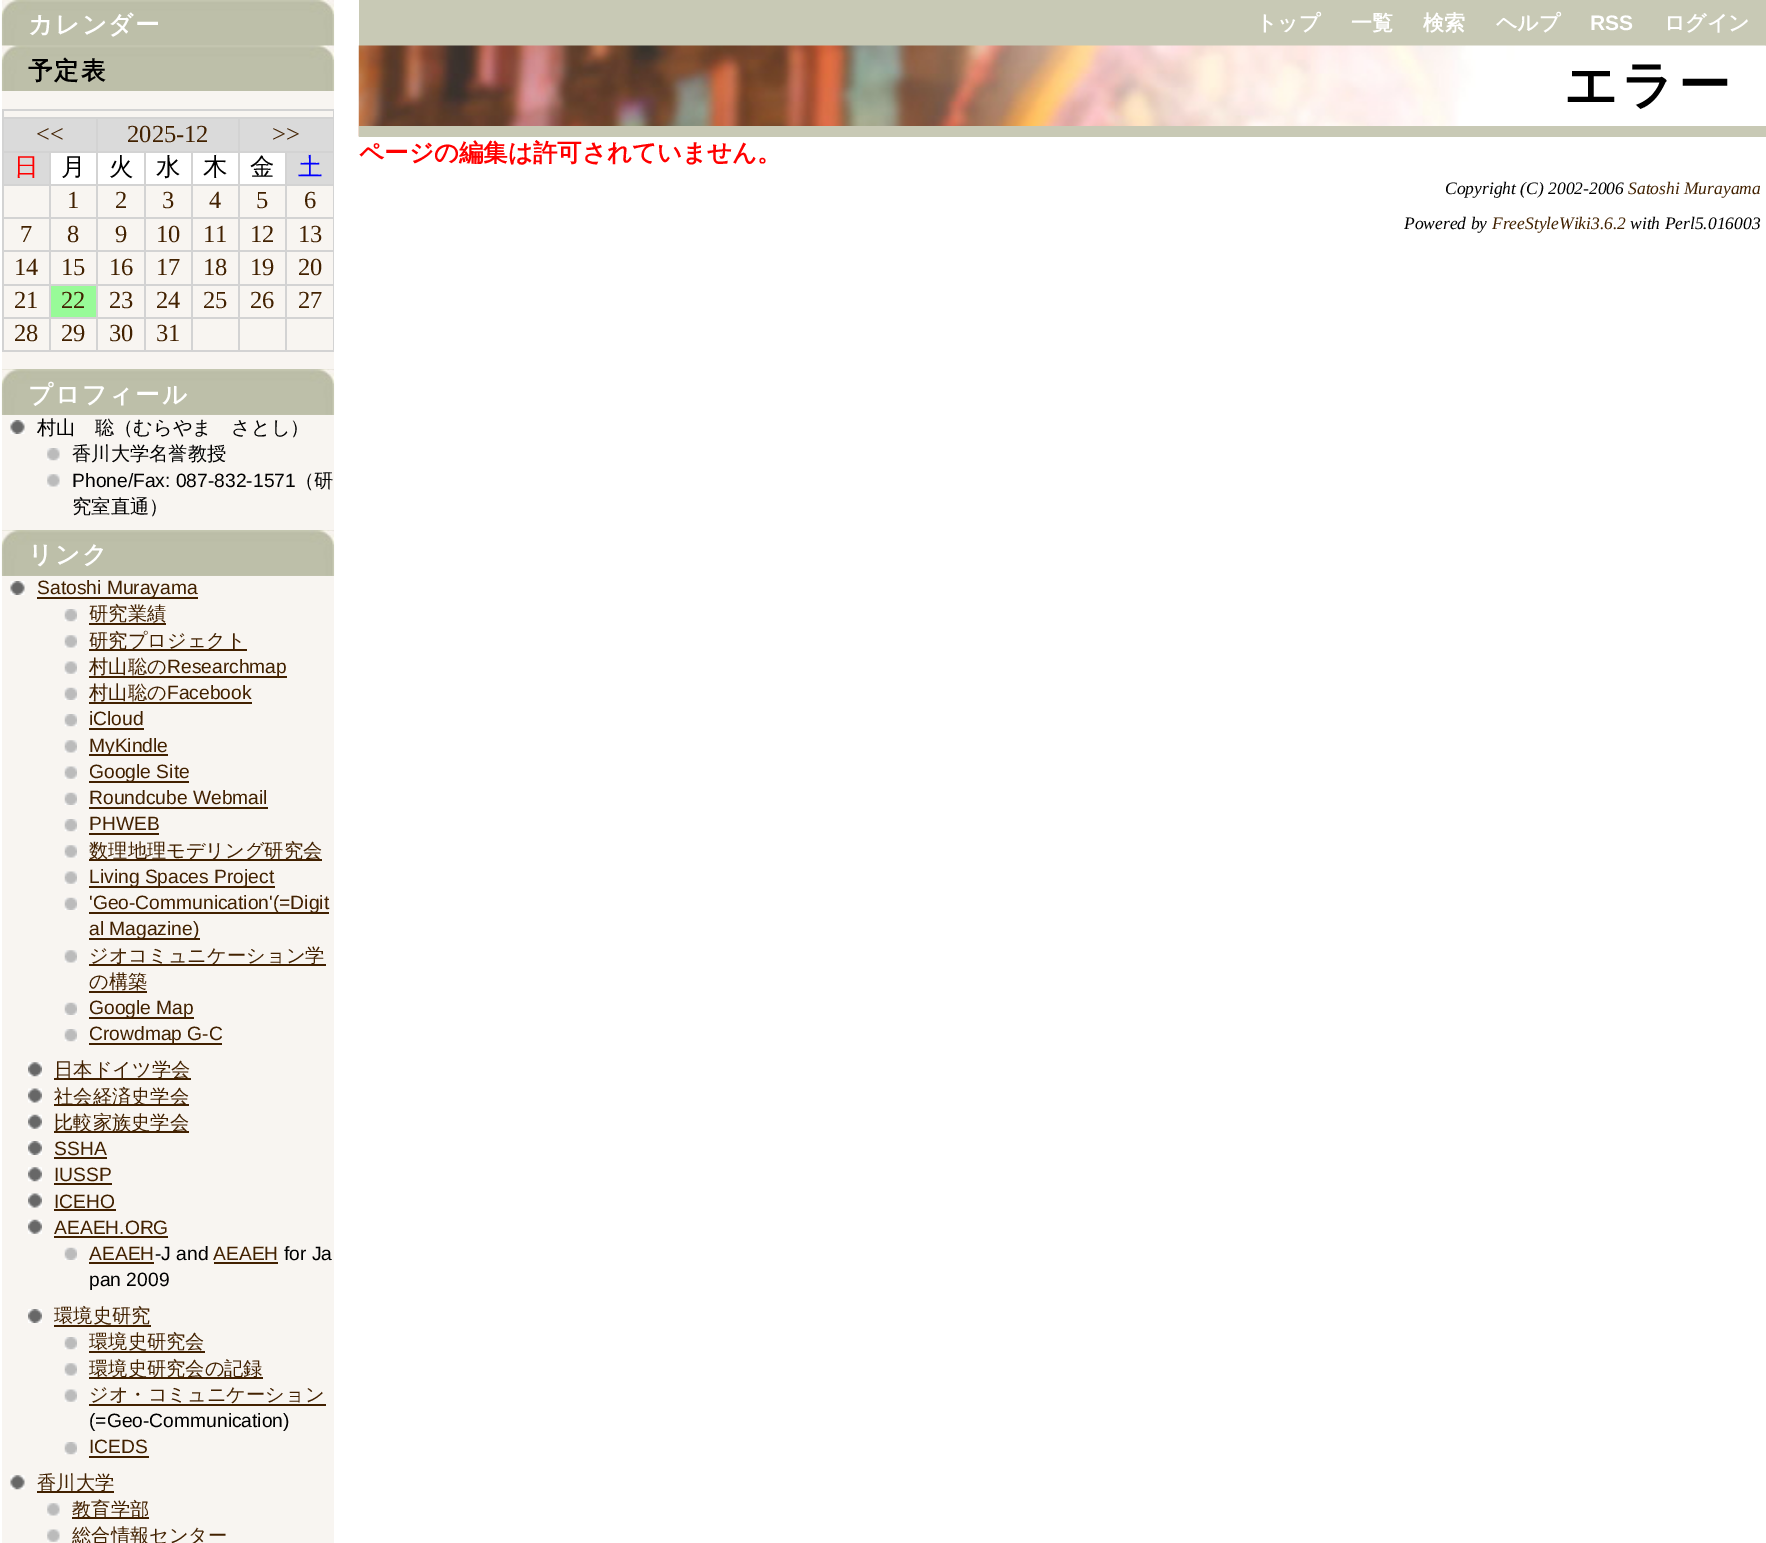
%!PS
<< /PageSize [1766 1543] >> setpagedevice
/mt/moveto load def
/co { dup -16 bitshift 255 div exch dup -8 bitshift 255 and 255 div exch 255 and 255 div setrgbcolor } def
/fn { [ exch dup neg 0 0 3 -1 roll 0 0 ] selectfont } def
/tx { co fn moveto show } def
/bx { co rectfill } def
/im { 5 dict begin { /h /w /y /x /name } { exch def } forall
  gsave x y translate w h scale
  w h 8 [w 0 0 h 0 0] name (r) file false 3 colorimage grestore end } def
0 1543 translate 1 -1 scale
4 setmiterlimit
0 0 1766 1543 16#FFFFFF bx
2 45 332 1498 16#F8F5F1 bx
(media/1.raw) 1 0 334 46 im
(media/2.raw) 1 45 334 46 im
2 109 332 2 16#D3D3D3 bx
333 109 1 243 16#D3D3D3 bx
2 350 332 2 16#D3D3D3 bx
2 109 2 243 16#D3D3D3 bx
2 117 332 2 16#D3D3D3 bx
4 119 92 32 16#DADADA bx
98 119 140 32 16#DADADA bx
240 119 93 32 16#DADADA bx
2 151 332 2 16#D3D3D3 bx
4 153 45 31 16#DADADA bx
51 153 45 31 16#FFFFFF bx
98 153 46 31 16#FFFFFF bx
146 153 45 31 16#FFFFFF bx
193 153 45 31 16#FFFFFF bx
240 153 45 31 16#FFFFFF bx
287 153 46 31 16#DADADA bx
2 184 332 2 16#D3D3D3 bx
2 217 332 2 16#D3D3D3 bx
2 250 332 2 16#D3D3D3 bx
2 284 332 2 16#D3D3D3 bx
51 286 45 31 16#98FB98 bx
2 317 332 2 16#D3D3D3 bx
49 151 2 201 16#D3D3D3 bx
96 117 2 235 16#D3D3D3 bx
144 151 2 201 16#D3D3D3 bx
191 151 2 201 16#D3D3D3 bx
238 117 2 235 16#D3D3D3 bx
285 151 2 201 16#D3D3D3 bx
(media/3.raw) 1 369 334 46 im
(media/4.raw) 10 420 15 14 im
(media/5.raw) 47 448 13 13 im
(media/6.raw) 47 474 13 13 im
(media/3.raw) 1 530 334 46 im
(media/4.raw) 10 581 15 14 im
37 597 161 2 16#422100 bx
(media/7.raw) 64 609 13 13 im
89 623 77 2 16#422100 bx
(media/8.raw) 64 635 13 13 im
89 649 158 2 16#422100 bx
(media/9.raw) 64 661 13 13 im
89 676 198 2 16#422100 bx
(media/10.raw) 64 687 13 13 im
89 702 163 2 16#422100 bx
(media/7.raw) 64 714 13 13 im
89 728 55 2 16#422100 bx
(media/8.raw) 64 740 13 13 im
89 754 79 2 16#422100 bx
(media/9.raw) 64 766 13 13 im
89 781 100 2 16#422100 bx
(media/10.raw) 64 792 13 13 im
89 807 179 2 16#422100 bx
(media/7.raw) 64 819 13 13 im
89 833 70 2 16#422100 bx
(media/8.raw) 64 845 13 13 im
89 859 233 2 16#422100 bx
(media/9.raw) 64 871 13 13 im
89 886 186 2 16#422100 bx
(media/10.raw) 64 897 13 13 im
89 912 240 2 16#422100 bx
89 938 111 2 16#422100 bx
(media/8.raw) 64 950 13 13 im
89 964 237 2 16#422100 bx
89 991 58 2 16#422100 bx
(media/10.raw) 64 1002 13 13 im
89 1017 105 2 16#422100 bx
(media/7.raw) 64 1029 13 13 im
89 1043 133 2 16#422100 bx
(media/11.raw) 28 1062 14 15 im
54 1078 137 2 16#422100 bx
(media/12.raw) 28 1088 14 15 im
54 1104 135 2 16#422100 bx
(media/13.raw) 28 1114 14 15 im
54 1131 135 2 16#422100 bx
(media/14.raw) 28 1141 14 14 im
54 1157 53 2 16#422100 bx
(media/11.raw) 28 1167 14 15 im
54 1183 58 2 16#422100 bx
(media/12.raw) 28 1193 14 15 im
54 1209 62 2 16#422100 bx
(media/13.raw) 28 1219 14 15 im
54 1236 114 2 16#422100 bx
(media/10.raw) 64 1247 13 13 im
89 1262 65 2 16#422100 bx
214 1262 64 2 16#422100 bx
(media/14.raw) 28 1309 14 14 im
54 1325 97 2 16#422100 bx
(media/7.raw) 64 1337 13 13 im
89 1351 116 2 16#422100 bx
(media/8.raw) 64 1363 13 13 im
89 1377 174 2 16#422100 bx
(media/9.raw) 64 1389 13 13 im
89 1404 237 2 16#422100 bx
(media/7.raw) 64 1442 13 13 im
89 1456 60 2 16#422100 bx
(media/15.raw) 10 1475 15 15 im
37 1491 77 2 16#422100 bx
(media/6.raw) 47 1503 13 13 im
72 1517 77 2 16#422100 bx
(media/16.raw) 47 1529 13 13 im
359 0 1407 46 16#C8C9B5 bx
(media/17.raw) 358 45 1408 92 im
359 126 1407 11 16#C8C9B5 bx
/WenQuanYiZenHei-Bold 24.5 fn
16#FFFFFF co
28 33 mt 1.75 0 (カレンダー) ashow
16#000000 co
28 79 mt 1.75 0 (予定表) ashow
(<<) 36 142 /LiberationSerif-Regular 24.5 16#422100 tx
(2025-12) 127 142 /LiberationSerif-Regular 24.5 16#422100 tx
(>>) 272 142 /LiberationSerif-Regular 24.5 16#422100 tx
(日) 14 175 /WenQuanYiZenHei-Medium 24.5 16#FF0000 tx
(月) 61 175 /WenQuanYiZenHei-Medium 24.5 16#000000 tx
(火) 109 175 /WenQuanYiZenHei-Medium 24.5 16#000000 tx
(水) 156 175 /WenQuanYiZenHei-Medium 24.5 16#000000 tx
(木) 203 175 /WenQuanYiZenHei-Medium 24.5 16#000000 tx
(金) 250 175 /WenQuanYiZenHei-Medium 24.5 16#000000 tx
(土) 298 175 /WenQuanYiZenHei-Medium 24.5 16#0000FF tx
(1) 67 208 /LiberationSerif-Regular 24.5 16#422100 tx
(2) 115 208 /LiberationSerif-Regular 24.5 16#422100 tx
(3) 162 208 /LiberationSerif-Regular 24.5 16#422100 tx
(4) 209 208 /LiberationSerif-Regular 24.5 16#422100 tx
(5) 256 208 /LiberationSerif-Regular 24.5 16#422100 tx
(6) 304 208 /LiberationSerif-Regular 24.5 16#422100 tx
(7) 20 242 /LiberationSerif-Regular 24.5 16#422100 tx
(8) 67 242 /LiberationSerif-Regular 24.5 16#422100 tx
(9) 115 242 /LiberationSerif-Regular 24.5 16#422100 tx
(10) 156 242 /LiberationSerif-Regular 24.5 16#422100 tx
(11) 203 242 /LiberationSerif-Regular 24.5 16#422100 tx
(12) 250 242 /LiberationSerif-Regular 24.5 16#422100 tx
(13) 298 242 /LiberationSerif-Regular 24.5 16#422100 tx
(14) 14 275 /LiberationSerif-Regular 24.5 16#422100 tx
(15) 61 275 /LiberationSerif-Regular 24.5 16#422100 tx
(16) 109 275 /LiberationSerif-Regular 24.5 16#422100 tx
(17) 156 275 /LiberationSerif-Regular 24.5 16#422100 tx
(18) 203 275 /LiberationSerif-Regular 24.5 16#422100 tx
(19) 250 275 /LiberationSerif-Regular 24.5 16#422100 tx
(20) 298 275 /LiberationSerif-Regular 24.5 16#422100 tx
(21) 14 308 /LiberationSerif-Regular 24.5 16#422100 tx
(22) 61 308 /LiberationSerif-Regular 24.5 16#422100 tx
(23) 109 308 /LiberationSerif-Regular 24.5 16#422100 tx
(24) 156 308 /LiberationSerif-Regular 24.5 16#422100 tx
(25) 203 308 /LiberationSerif-Regular 24.5 16#422100 tx
(26) 250 308 /LiberationSerif-Regular 24.5 16#422100 tx
(27) 298 308 /LiberationSerif-Regular 24.5 16#422100 tx
(28) 14 341 /LiberationSerif-Regular 24.5 16#422100 tx
(29) 61 341 /LiberationSerif-Regular 24.5 16#422100 tx
(30) 109 341 /LiberationSerif-Regular 24.5 16#422100 tx
(31) 156 341 /LiberationSerif-Regular 24.5 16#422100 tx
/WenQuanYiZenHei-Bold 24.5 fn
16#FFFFFF co
28 403 mt 1.75 0 (プロフィール) ashow
(村山　聡（むらやま　さとし）) 37 434 /WenQuanYiZenHei-Medium 19.25 16#000000 tx
(香川大学名誉教授) 72 460 /WenQuanYiZenHei-Medium 19.25 16#000000 tx
(Phone/Fax: 087-832-1571) 72 487 /LiberationSans-Regular 19.25 16#000000 tx
(（研) 295 487 /WenQuanYiZenHei-Medium 19.25 16#000000 tx
(究室直通）) 72 513 /WenQuanYiZenHei-Medium 19.25 16#000000 tx
/WenQuanYiZenHei-Bold 24.5 fn
16#FFFFFF co
28 563 mt 1.75 0 (リンク) ashow
(Satoshi Murayama) 37 594 /LiberationSans-Regular 19.25 16#422100 tx
(研究業績) 89 620 /WenQuanYiZenHei-Medium 19.25 16#422100 tx
(研究プロジェクト) 89 647 /WenQuanYiZenHei-Medium 19.25 16#422100 tx
(村山聡の) 89 673 /WenQuanYiZenHei-Medium 19.25 16#422100 tx
(Researchmap) 167 673 /LiberationSans-Regular 19.25 16#422100 tx
(村山聡の) 89 699 /WenQuanYiZenHei-Medium 19.25 16#422100 tx
(Facebook) 167 699 /LiberationSans-Regular 19.25 16#422100 tx
(iCloud) 89 725 /LiberationSans-Regular 19.25 16#422100 tx
(MyKindle) 89 752 /LiberationSans-Regular 19.25 16#422100 tx
(Google Site) 89 778 /LiberationSans-Regular 19.25 16#422100 tx
(Roundcube Webmail) 89 804 /LiberationSans-Regular 19.25 16#422100 tx
(PHWEB) 89 830 /LiberationSans-Regular 19.25 16#422100 tx
(数理地理モデリング研究会) 89 857 /WenQuanYiZenHei-Medium 19.25 16#422100 tx
(Living Spaces Project) 89 883 /LiberationSans-Regular 19.25 16#422100 tx
('Geo-Communication'\(=Digit) 89 909 /LiberationSans-Regular 19.25 16#422100 tx
(al Magazine\)) 89 935 /LiberationSans-Regular 19.25 16#422100 tx
(ジオコミュニケーション学) 89 962 /WenQuanYiZenHei-Medium 19.25 16#422100 tx
(の構築) 89 988 /WenQuanYiZenHei-Medium 19.25 16#422100 tx
(Google Map) 89 1014 /LiberationSans-Regular 19.25 16#422100 tx
(Crowdmap G-C) 89 1040 /LiberationSans-Regular 19.25 16#422100 tx
(日本ドイツ学会) 54 1076 /WenQuanYiZenHei-Medium 19.25 16#422100 tx
(社会経済史学会) 54 1103 /WenQuanYiZenHei-Medium 19.25 16#422100 tx
(比較家族史学会) 54 1129 /WenQuanYiZenHei-Medium 19.25 16#422100 tx
(SSHA) 54 1155 /LiberationSans-Regular 19.25 16#422100 tx
(IUSSP) 54 1181 /LiberationSans-Regular 19.25 16#422100 tx
(ICEHO) 54 1208 /LiberationSans-Regular 19.25 16#422100 tx
(AEAEH.ORG) 54 1234 /LiberationSans-Regular 19.25 16#422100 tx
(AEAEH) 89 1260 /LiberationSans-Regular 19.25 16#422100 tx
(-J and) 155 1260 /LiberationSans-Regular 19.25 16#000000 tx
(AEAEH) 213 1260 /LiberationSans-Regular 19.25 16#422100 tx
(for Ja) 284 1260 /LiberationSans-Regular 19.25 16#000000 tx
(pan 2009) 89 1286 /LiberationSans-Regular 19.25 16#000000 tx
(環境史研究) 54 1322 /WenQuanYiZenHei-Medium 19.25 16#422100 tx
(環境史研究会) 89 1348 /WenQuanYiZenHei-Medium 19.25 16#422100 tx
(環境史研究会の記録) 89 1375 /WenQuanYiZenHei-Medium 19.25 16#422100 tx
(ジオ・コミュニケーション) 89 1401 /WenQuanYiZenHei-Medium 19.25 16#422100 tx
(\(=Geo-Communication\)) 89 1427 /LiberationSans-Regular 19.25 16#000000 tx
(ICEDS) 89 1453 /LiberationSans-Regular 19.25 16#422100 tx
(香川大学) 37 1489 /WenQuanYiZenHei-Medium 19.25 16#422100 tx
(教育学部) 72 1516 /WenQuanYiZenHei-Medium 19.25 16#422100 tx
(総合情報センター) 72 1542 /WenQuanYiZenHei-Medium 19.25 16#422100 tx
(トップ) 1256 30 /WenQuanYiZenHei-Bold 21 16#FFFFFF tx
(一覧) 1351 30 /WenQuanYiZenHei-Bold 21 16#FFFFFF tx
(検索) 1423 30 /WenQuanYiZenHei-Bold 21 16#FFFFFF tx
(ヘルプ) 1496 30 /WenQuanYiZenHei-Bold 21 16#FFFFFF tx
(RSS) 1590 30 /LiberationSans-Bold 21 16#FFFFFF tx
(ログイン) 1664 30 /WenQuanYiZenHei-Bold 21 16#FFFFFF tx
/WenQuanYiZenHei-Bold 52.5 fn
16#000000 co
1564 103 mt 3.5 0 (エラー) ashow
(ページの編集は許可されていません。) 359 161 /WenQuanYiZenHei-Bold 24.5 16#FF0000 tx
(Copyright \(C\) 2002-2006) 1445 194 /LiberationSerif-Italic 17.5 16#000000 tx
(Satoshi Murayama) 1628 194 /LiberationSerif-Italic 17.5 16#422100 tx
(Powered by) 1404 229 /LiberationSerif-Italic 17.5 16#000000 tx
(FreeStyleWiki3.6.2) 1492 229 /LiberationSerif-Italic 17.5 16#422100 tx
(with Perl5.016003) 1630 229 /LiberationSerif-Italic 17.5 16#000000 tx
showpage
